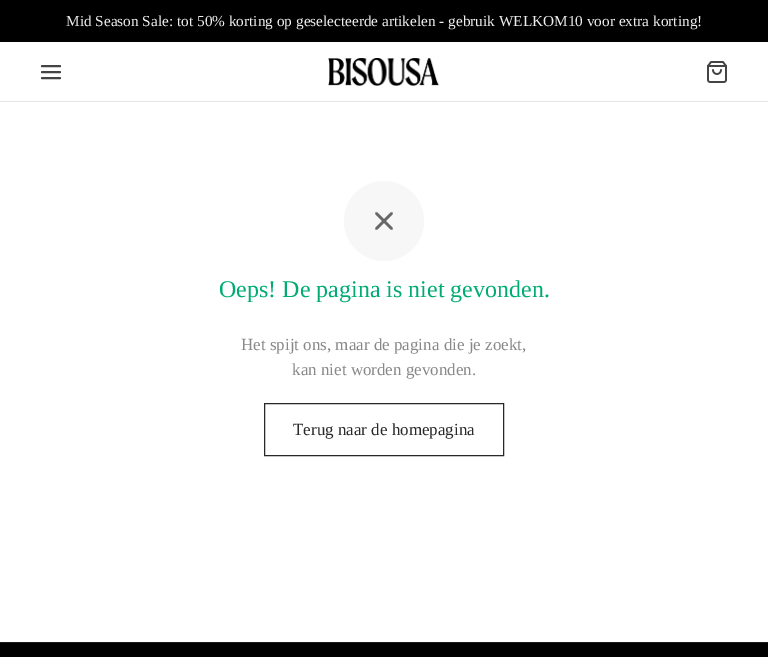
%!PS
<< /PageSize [768 657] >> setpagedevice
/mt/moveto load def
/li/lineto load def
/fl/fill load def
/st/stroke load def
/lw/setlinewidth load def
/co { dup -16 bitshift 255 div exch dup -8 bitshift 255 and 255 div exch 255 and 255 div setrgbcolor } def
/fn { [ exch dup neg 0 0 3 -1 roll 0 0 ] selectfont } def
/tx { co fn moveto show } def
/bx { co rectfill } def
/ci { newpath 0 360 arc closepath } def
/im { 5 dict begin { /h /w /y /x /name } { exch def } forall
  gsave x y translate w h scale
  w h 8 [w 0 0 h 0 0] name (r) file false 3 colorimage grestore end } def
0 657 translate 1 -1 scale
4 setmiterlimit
0 0 768 657 16#FFFFFF bx
0 0 768 42 16#000000 bx
16#444444 co
2 lw
1 setlinecap
1 setlinejoin
42 72 mt 60 72 li 42 66 mt 60 66 li 42 78 mt 60 78 li st
(media/1.raw) 328 58 112 28 im
(media/2.raw) 707 61 20 22 im
0 101 768 1 16#E6E6E6 bx
16#F7F7F7 co
384 221 40 ci fl
16#686868 co
2.5 lw
391.5 213.5 mt 376.5 228.5 li 376.5 213.5 mt 391.5 228.5 li st
16#282828 co
1 lw
0 setlinecap
0 setlinejoin
264.5 403.5 239 52 rectstroke
0 643 768 14 16#000000 bx
0 642 768 1 16#1A1A1A bx
(Mid Season Sale: tot 50% korting op geselecteerde artikelen - gebruik WELKOM10 voor extra korting!) 66 26 /LiberationSerif-Regular 15.3 16#EEEEEE tx
(Oeps! De pagina is niet gevonden.) 219 297 /LiberationSerif-Regular 24 16#00AC74 tx
(Het spijt ons, maar de pagina die je zoekt,) 241 350 /LiberationSerif-Regular 17 16#888888 tx
(kan niet worden gevonden.) 292 375 /LiberationSerif-Regular 17 16#888888 tx
(Terug naar de homepagina) 293 435 /LiberationSerif-Regular 17 16#282828 tx
showpage
